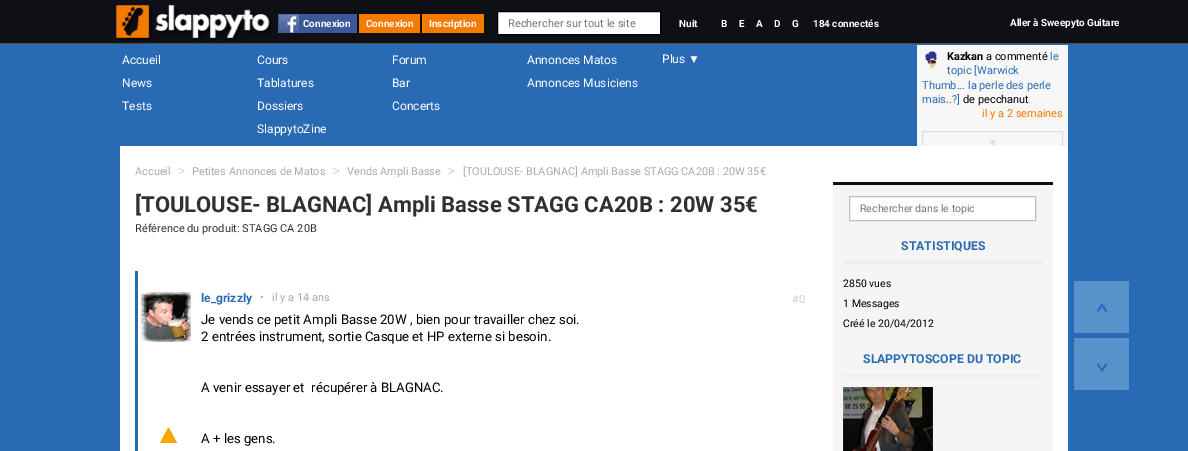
%!PS
<< /PageSize [1188 451] >> setpagedevice
/mt/moveto load def
/li/lineto load def
/cp/closepath load def
/fl/fill load def
/st/stroke load def
/gs/gsave load def
/gr/grestore load def
/co { dup -16 bitshift 255 div exch dup -8 bitshift 255 and 255 div exch 255 and 255 div setrgbcolor } def
/fn { [ exch dup neg 0 0 3 -1 roll 0 0 ] selectfont } def
/tx { co fn moveto show } def
/bx { co rectfill } def
/im { 5 dict begin { /h /w /y /x /name } { exch def } forall
  gsave x y translate w h scale
  w h 8 [w 0 0 h 0 0] name (r) file false 3 colorimage grestore end } def
0 451 translate 1 -1 scale
4 setmiterlimit
0 0 1188 451 16#286AB3 bx
0 0 1188 43 16#0E1015 bx
0 43 1188 1 16#4C4C4C bx
(media/1.raw) 116 5 157 36 im
300 14 57 19 16#3B5998 bx
(media/2.raw) 278 14 22 19 im
359 14 61 19 16#F47A00 bx
422 14 62 19 16#F47A00 bx
16#FFFFFF co
497.5 11.5 mt 660.5 11.5 li 660.5 34.5 li 497.5 34.5 li cp gs fl gr
16#000000 co
st
917 45 151 101 16#F7F7F7 bx
(media/3.raw) 925 51 12 18 im
120 146 948 305 16#FFFFFF bx
gs
917 45 151 101 rectclip
16#DDDDDD co
922.5 131.5 140 22 rectstroke
gr
833 185 220 266 16#F5F5F5 bx
833 182 220 3 16#0E1015 bx
16#FFFFFF co
849.5 196.5 mt 1035.5 196.5 li 1035.5 220.5 li 849.5 220.5 li cp gs fl gr
16#B7BECF co
st
843 261 200 3 16#EEEEEE bx
843 374 200 3 16#EEEEEE bx
(media/4.raw) 843 387 90 64 im
135 271 3 180 16#286AB3 bx
16#FFA500 co
177 443 mt 160 443 li 168 428 li 169 428 li cp fl
(media/5.raw) 141 292 50 50 im
1074 281 55 52 16#5793CA bx
(media/6.raw) 1096 303 12 9 im
1074 338 55 52 16#5793CA bx
(media/7.raw) 1096 363 12 10 im
(Connexion) 303 27 /Roboto-Bold 9.9 16#FFFFFF tx
(Connexion) 366 27 /Roboto-Bold 9.9 16#FFFFFF tx
(Inscription) 429 27 /Roboto-Bold 9.9 16#FFFFFF tx
(Rechercher sur tout le site) 508 27 /Roboto-Regular 11 16#757575 tx
(Nuit) 679 27 /Roboto-Bold 9.9 16#FFFFFF tx
(B) 721 27 /Roboto-Bold 9.9 16#FFFFFF tx
(E) 739 27 /Roboto-Bold 9.9 16#FFFFFF tx
(A) 756 27 /Roboto-Bold 9.9 16#FFFFFF tx
(D) 774 27 /Roboto-Bold 9.9 16#FFFFFF tx
(G) 792 27 /Roboto-Bold 9.9 16#FFFFFF tx
(184 connectés) 813 27 /Roboto-Bold 9.9 16#FFFFFF tx
(Aller à Sweepyto Guitare) 1010 26 /Roboto-Bold 9.9 16#FFFFFF tx
(Accueil) 122 64 /Roboto-Regular 12 16#FFFFFF tx
(News) 122 87 /Roboto-Regular 12 16#FFFFFF tx
(Tests) 122 110 /Roboto-Regular 12 16#FFFFFF tx
(Cours) 257 64 /Roboto-Regular 12 16#FFFFFF tx
(Tablatures) 257 87 /Roboto-Regular 12 16#FFFFFF tx
(Dossiers) 257 110 /Roboto-Regular 12 16#FFFFFF tx
(SlappytoZine) 257 133 /Roboto-Regular 12 16#FFFFFF tx
(Forum) 392 64 /Roboto-Regular 12 16#FFFFFF tx
(Bar) 392 87 /Roboto-Regular 12 16#FFFFFF tx
(Concerts) 392 110 /Roboto-Regular 12 16#FFFFFF tx
(Annonces Matos) 527 64 /Roboto-Regular 12 16#FFFFFF tx
(Annonces Musiciens) 527 87 /Roboto-Regular 12 16#FFFFFF tx
(Plus) 662 63 /Roboto-Regular 12 16#FFFFFF tx
(▼) 688 63 /LiberationSans-Regular 12 16#FFFFFF tx
(Kazkan) 947 60 /Roboto-Bold 11 16#000000 tx
(a commenté) 986 60 /Roboto-Regular 11 16#000000 tx
(le) 1050 60 /Roboto-Regular 11 16#286AB3 tx
(topic [Warwick) 947 74 /Roboto-Regular 11 16#286AB3 tx
(Thumb... la perle des perle) 922 89 /Roboto-Regular 11 16#286AB3 tx
(mais..?]) 922 103 /Roboto-Regular 11 16#286AB3 tx
(de pecchanut) 963 103 /Roboto-Regular 11 16#000000 tx
(il y a 2 semaines) 982 117 /Roboto-Regular 11 16#F47A00 tx
(▼) 988 146 /LiberationSans-Regular 9.9 16#DDDDDD tx
(Accueil) 135 175 /Roboto-Regular 10.9 16#AAAAAA tx
(>) 178 175 /LiberationSans-Regular 12 16#CCCCCC tx
(Petites Annonces de Matos) 192 175 /Roboto-Regular 10.9 16#AAAAAA tx
(>) 333 175 /LiberationSans-Regular 12 16#CCCCCC tx
(Vends Ampli Basse) 347 175 /Roboto-Regular 10.9 16#AAAAAA tx
(>) 448 175 /LiberationSans-Regular 12 16#CCCCCC tx
([TOULOUSE- BLAGNAC] Ampli Basse STAGG CA20B : 20W 35€) 463 175 /Roboto-Regular 10.9 16#AAAAAA tx
([TOULOUSE- BLAGNAC] Ampli Basse STAGG CA20B : 20W 35€) 135 212 /Roboto-Bold 22 16#303030 tx
(Référence du produit: STAGG CA 20B) 135 232 /Roboto-Regular 11 16#303030 tx
(Rechercher dans le topic) 860 212 /Roboto-Regular 10.5 16#757575 tx
(STATISTIQUES) 901 250 /Roboto-Bold 12.25 16#286AB3 tx
(2850 vues) 843 287 /Roboto-Regular 10.5 16#000000 tx
(1 Messages) 843 307 /Roboto-Regular 10.5 16#000000 tx
(Créé le 20/04/2012) 843 327 /Roboto-Regular 10.5 16#000000 tx
(SLAPPYTOSCOPE DU TOPIC) 863 363 /Roboto-Bold 12.25 16#286AB3 tx
(le_grizzly) 201 302 /Roboto-Bold 12 16#286AB3 tx
(•) 260 301 /Roboto-Regular 11 16#AAAAAA tx
(il y a 14 ans) 272 301 /Roboto-Regular 11 16#AAAAAA tx
(#0) 792 303 /Roboto-Regular 11 16#CCCCCC tx
(Je vends ce petit Ampli Basse 20W , bien pour travailler chez soi.) 201 324 /Roboto-Regular 13.2 16#000000 tx
(2 entrées instrument, sortie Casque et HP externe si besoin.) 201 341 /Roboto-Regular 13.2 16#000000 tx
(A venir essayer et  récupérer à BLAGNAC.) 201 392 /Roboto-Regular 13.2 16#000000 tx
(A + les gens.) 201 443 /Roboto-Regular 13.2 16#000000 tx
showpage
